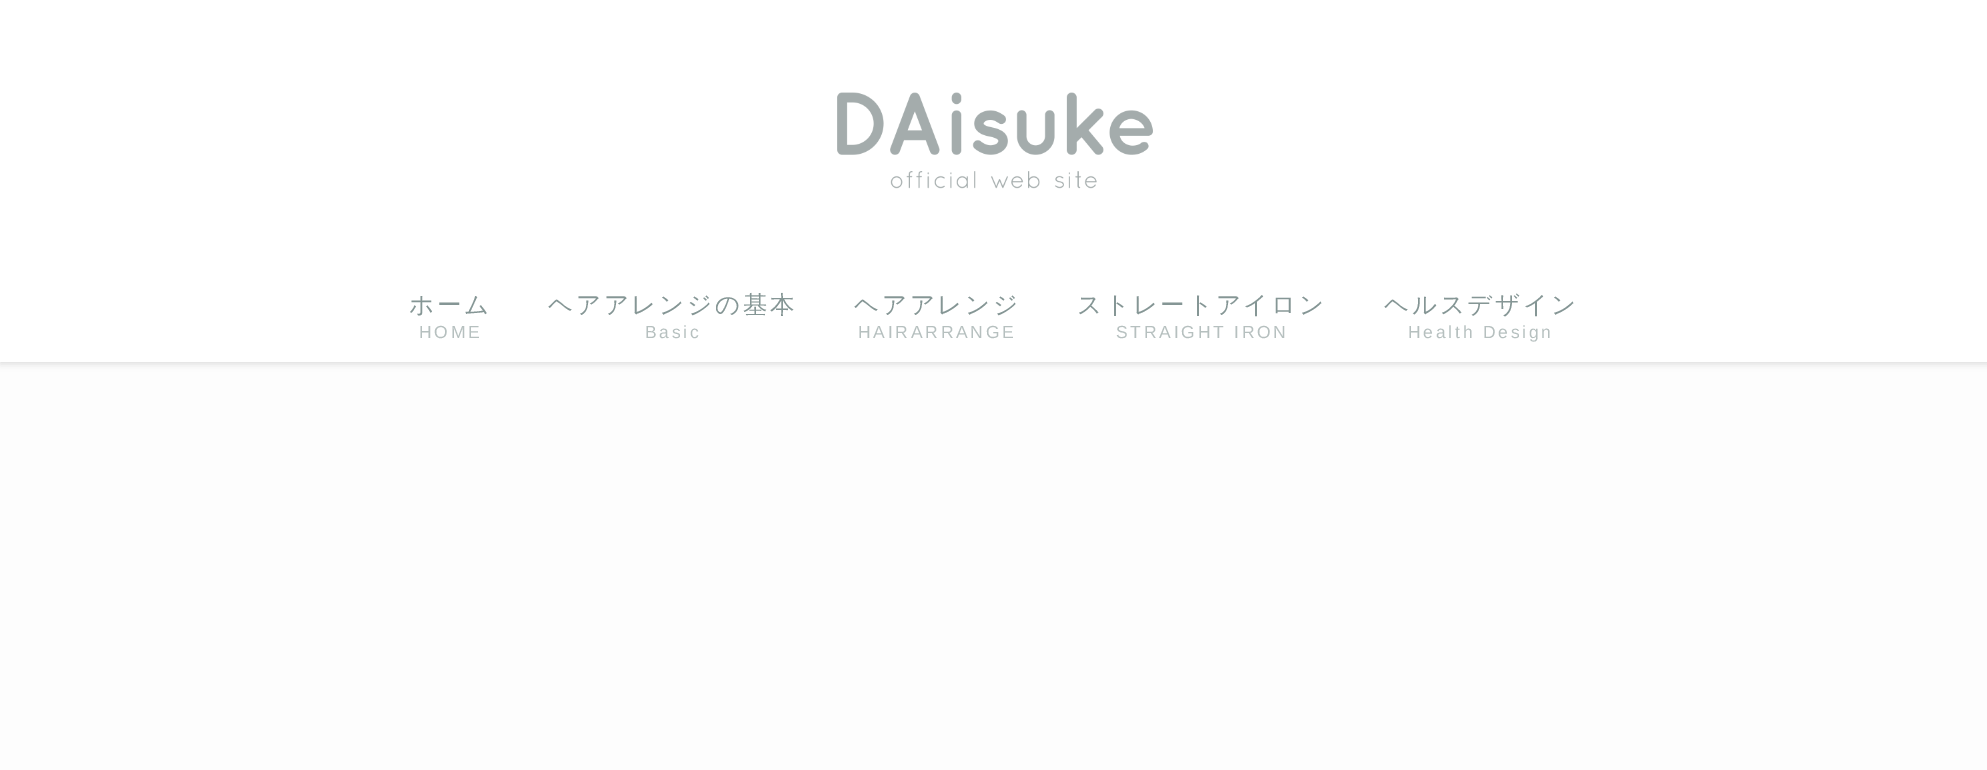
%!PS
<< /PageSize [1987 770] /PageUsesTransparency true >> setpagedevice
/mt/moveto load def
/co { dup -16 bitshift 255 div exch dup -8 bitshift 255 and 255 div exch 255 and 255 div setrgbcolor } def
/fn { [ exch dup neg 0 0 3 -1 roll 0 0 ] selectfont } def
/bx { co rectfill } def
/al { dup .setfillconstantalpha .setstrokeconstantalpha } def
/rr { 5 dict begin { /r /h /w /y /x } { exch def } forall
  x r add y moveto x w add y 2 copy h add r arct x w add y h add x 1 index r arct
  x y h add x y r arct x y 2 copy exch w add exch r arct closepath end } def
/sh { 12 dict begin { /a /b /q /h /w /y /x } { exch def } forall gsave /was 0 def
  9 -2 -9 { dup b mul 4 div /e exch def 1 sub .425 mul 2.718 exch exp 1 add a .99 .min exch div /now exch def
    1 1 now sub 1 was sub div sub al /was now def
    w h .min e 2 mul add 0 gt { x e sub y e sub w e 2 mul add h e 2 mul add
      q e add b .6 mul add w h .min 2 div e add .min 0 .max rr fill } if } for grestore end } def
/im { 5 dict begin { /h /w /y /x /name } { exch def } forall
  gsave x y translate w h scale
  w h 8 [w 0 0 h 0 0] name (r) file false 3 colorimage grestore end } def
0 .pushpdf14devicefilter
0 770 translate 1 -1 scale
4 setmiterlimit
0 0 1987 770 16#FDFDFD bx
16#000000 co
0 2 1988 362 0 3.5 .12 sh
0 0 1987 362 16#FFFFFF bx
(media/1.raw) 837 92 316 97 im
/WenQuanYiZenHei-Medium 24.5 fn
16#859695 co
409 313 mt 2.75 0 (ホーム) ashow
/LiberationSans-Regular 17.5 fn
16#B6C0BF co
419 338 mt 2.75 0 (HOME) ashow
/WenQuanYiZenHei-Medium 24.5 fn
16#859695 co
548 313 mt 2.75 0 (ヘアアレンジの基本) ashow
/LiberationSans-Regular 17.5 fn
16#B6C0BF co
645 338 mt 2.75 0 (Basic) ashow
/WenQuanYiZenHei-Medium 24.5 fn
16#859695 co
854 313 mt 2.75 0 (ヘアアレンジ) ashow
/LiberationSans-Regular 17.5 fn
16#B6C0BF co
858 338 mt 2.75 0 (HAIRARRANGE) ashow
/WenQuanYiZenHei-Medium 24.5 fn
16#859695 co
1077 313 mt 2.75 0 (ストレートアイロン) ashow
/LiberationSans-Regular 17.5 fn
16#B6C0BF co
1116 338 mt 2.75 0 (STRAIGHT IRON) ashow
/WenQuanYiZenHei-Medium 24.5 fn
16#859695 co
1384 313 mt 2.75 0 (ヘルスデザイン) ashow
/LiberationSans-Regular 17.5 fn
16#B6C0BF co
1408 338 mt 2.75 0 (Health Design) ashow
.poppdf14devicefilter showpage
